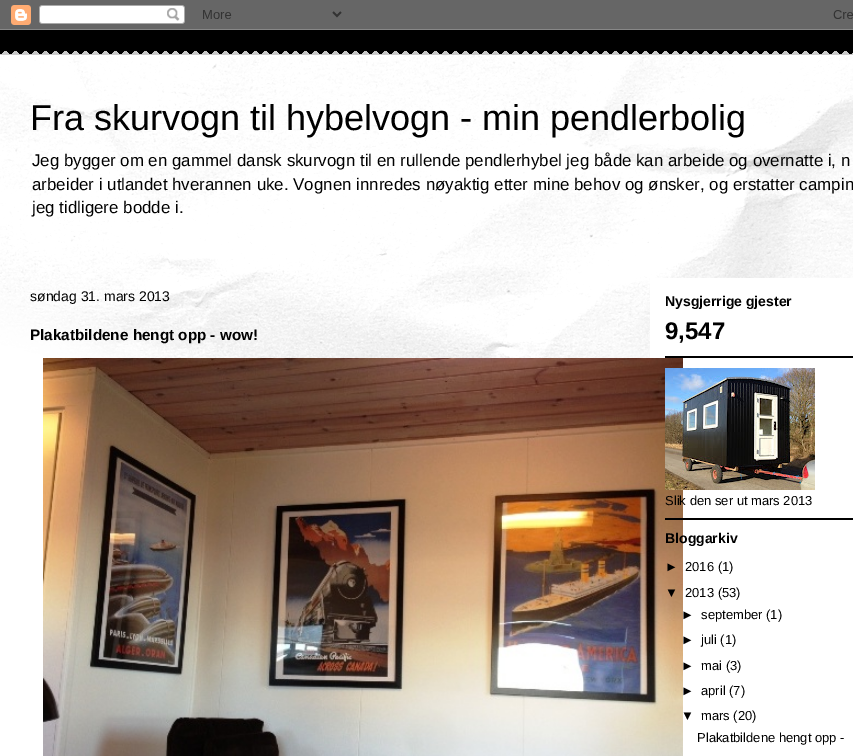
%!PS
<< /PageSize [853 756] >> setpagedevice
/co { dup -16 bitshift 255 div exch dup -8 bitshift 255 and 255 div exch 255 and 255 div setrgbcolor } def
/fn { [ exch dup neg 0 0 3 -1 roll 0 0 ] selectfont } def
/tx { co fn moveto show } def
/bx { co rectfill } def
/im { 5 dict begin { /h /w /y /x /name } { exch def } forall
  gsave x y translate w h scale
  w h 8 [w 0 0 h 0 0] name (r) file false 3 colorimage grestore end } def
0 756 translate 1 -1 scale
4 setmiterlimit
0 0 853 756 16#000000 bx
(media/1.raw) 0 0 853 30 im
(media/2.raw) 0 51 853 4 im
0 55 853 701 16#FFFFFF bx
(media/3.raw) 0 55 853 305 im
650 278 203 82 16#FFFFFF bx
(media/4.raw) 43 358 640 398 im
665 356 188 2 16#000000 bx
665 518 188 2 16#000000 bx
(media/5.raw) 665 368 150 122 im
(Fra skurvogn til hybelvogn - min pendlerbolig) 30 130 /LiberationSans-Regular 36 16#000000 tx
(Jeg bygger om en gammel dansk skurvogn til en rullende pendlerhybel jeg både kan arbeide og overnatte i, n) 32 166 /LiberationSans-Regular 16.9 16#000000 tx
(arbeider i utlandet hverannen uke. Vognen innredes nøyaktig etter mine behov og ønsker, og erstatter campin) 32 190 /LiberationSans-Regular 16.9 16#000000 tx
(jeg tidligere bodde i.) 32 213 /LiberationSans-Regular 16.9 16#000000 tx
(søndag 31. mars 2013) 30 301 /LiberationSans-Regular 14 16#000000 tx
(Plakatbildene hengt opp - wow!) 30 340 /LiberationSans-Bold 15.25 16#000000 tx
(Nysgjerrige gjester) 665 306 /LiberationSans-Bold 14 16#000000 tx
(9,547) 665 339 /LiberationSans-Bold 24 16#000000 tx
(Slik den ser ut mars 2013) 665 505 /LiberationSans-Regular 13 16#000000 tx
(Bloggarkiv) 665 543 /LiberationSans-Bold 14 16#000000 tx
(►) 665 571 /LiberationSans-Regular 13 16#000000 tx
(2016 \(1\)) 685 571 /LiberationSans-Regular 13 16#000000 tx
(▼) 665 597 /LiberationSans-Regular 13 16#000000 tx
(2013 \(53\)) 685 597 /LiberationSans-Regular 13 16#000000 tx
(►) 681 619 /LiberationSans-Regular 13 16#000000 tx
(september \(1\)) 701 619 /LiberationSans-Regular 13 16#000000 tx
(►) 681 644 /LiberationSans-Regular 13 16#000000 tx
(juli \(1\)) 701 644 /LiberationSans-Regular 13 16#000000 tx
(►) 681 670 /LiberationSans-Regular 13 16#000000 tx
(mai \(3\)) 701 670 /LiberationSans-Regular 13 16#000000 tx
(►) 681 695 /LiberationSans-Regular 13 16#000000 tx
(april \(7\)) 701 695 /LiberationSans-Regular 13 16#000000 tx
(▼) 681 720 /LiberationSans-Regular 13 16#000000 tx
(mars \(20\)) 701 720 /LiberationSans-Regular 13 16#000000 tx
(Plakatbildene hengt opp -) 697 742 /LiberationSans-Regular 13 16#000000 tx
showpage
